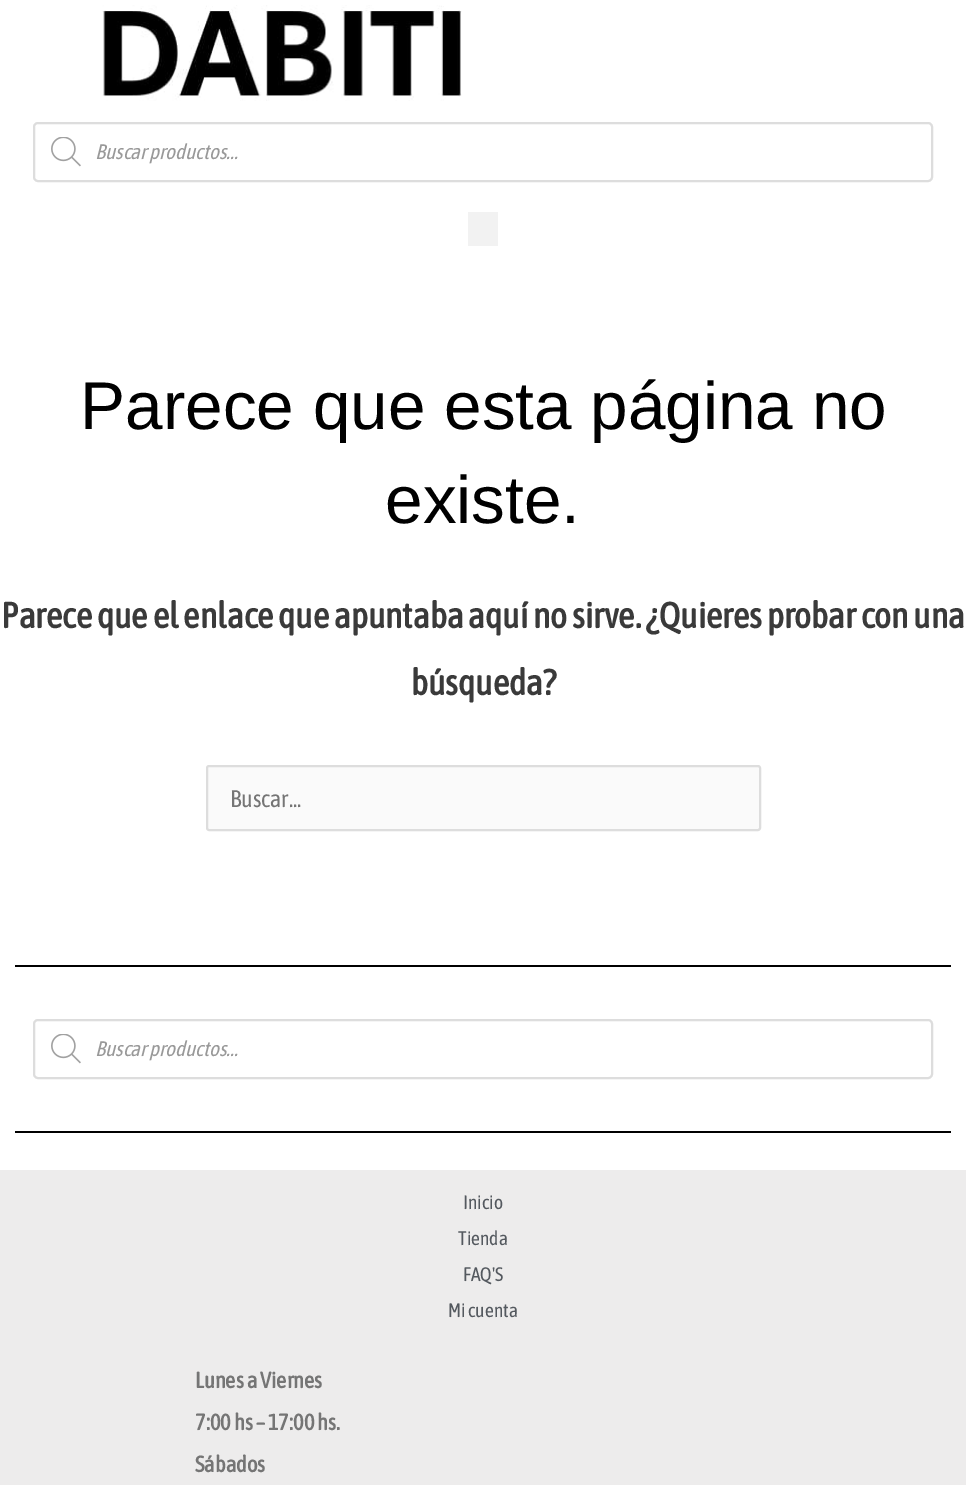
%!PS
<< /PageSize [966 1485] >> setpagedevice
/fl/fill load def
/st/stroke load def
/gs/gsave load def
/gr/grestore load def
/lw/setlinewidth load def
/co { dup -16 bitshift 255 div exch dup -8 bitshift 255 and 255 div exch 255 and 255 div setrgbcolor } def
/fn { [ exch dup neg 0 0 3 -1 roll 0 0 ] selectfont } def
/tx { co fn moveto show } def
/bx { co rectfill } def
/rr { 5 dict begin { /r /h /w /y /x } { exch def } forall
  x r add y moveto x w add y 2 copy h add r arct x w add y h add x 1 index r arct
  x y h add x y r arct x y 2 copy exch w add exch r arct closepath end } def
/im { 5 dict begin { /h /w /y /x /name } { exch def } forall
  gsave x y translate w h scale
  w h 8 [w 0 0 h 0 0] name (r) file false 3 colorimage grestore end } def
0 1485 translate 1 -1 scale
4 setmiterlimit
0 0 966 1485 16#FFFFFF bx
(media/1.raw) 102 5 360 96 im
16#DDDDDD co
2 lw
34 123 898 58 4 rr st
(media/2.raw) 51 137 30 30 im
468 212 30 34 16#F2F2F2 bx
16#FAFAFA co
207 766 553 64 2 rr gs fl gr
16#DDDDDD co
st
15 965 936 2 16#000000 bx
16#DDDDDD co
34 1020 898 58 4 rr st
(media/2.raw) 51 1034 30 30 im
15 1131 936 2 16#000000 bx
0 1170 966 315 16#EDECEC bx
(Buscar productos...) 95 159 /AsapCondensed-Italic 21 16#999999 tx
(Parece que esta página no) 80 429 /LiberationSans-Regular 67.5 16#000000 tx
(existe.) 385 523 /LiberationSans-Regular 67.5 16#000000 tx
(Parece que el enlace que apuntaba aquí no sirve. ¿Quieres probar con una) 1 628 /AsapCondensed-Bold 36 16#3A3A3A tx
(búsqueda?) 411 695 /AsapCondensed-Bold 36 16#3A3A3A tx
(Buscar...) 230 807 /AsapCondensed-Regular 24 16#757575 tx
(Buscar productos...) 95 1056 /AsapCondensed-Italic 21 16#999999 tx
(Inicio) 463 1209 /AsapCondensed-Regular 19.5 16#54595F tx
(Tienda) 458 1245 /AsapCondensed-Regular 19.5 16#54595F tx
(FAQ'S) 463 1281 /AsapCondensed-Regular 19.5 16#54595F tx
(Mi cuenta) 448 1317 /AsapCondensed-Regular 19.5 16#54595F tx
(Lunes a Viernes) 195 1388 /AsapCondensed-Bold 22.5 16#757575 tx
(7:00 hs – 17:00 hs.) 195 1430 /AsapCondensed-Bold 22.5 16#757575 tx
(Sábados) 195 1472 /AsapCondensed-Bold 22.5 16#757575 tx
showpage
